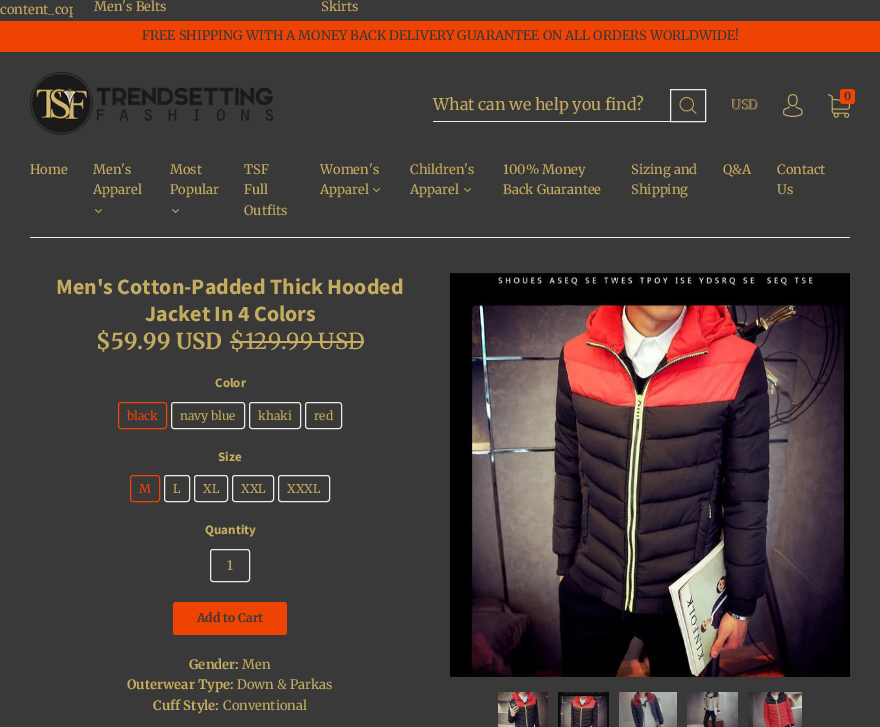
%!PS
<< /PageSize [880 727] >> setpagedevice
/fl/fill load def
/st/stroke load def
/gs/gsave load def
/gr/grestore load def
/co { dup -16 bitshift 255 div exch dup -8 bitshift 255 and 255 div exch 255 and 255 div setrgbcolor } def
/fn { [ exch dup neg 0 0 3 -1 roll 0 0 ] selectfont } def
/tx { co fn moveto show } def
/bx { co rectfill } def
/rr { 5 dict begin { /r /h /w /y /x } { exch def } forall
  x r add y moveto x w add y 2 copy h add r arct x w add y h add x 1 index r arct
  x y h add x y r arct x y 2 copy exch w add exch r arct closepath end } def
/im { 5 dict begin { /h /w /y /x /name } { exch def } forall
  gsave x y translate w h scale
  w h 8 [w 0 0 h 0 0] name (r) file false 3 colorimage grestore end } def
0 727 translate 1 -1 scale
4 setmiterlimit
0 0 880 727 16#3A3939 bx
(media/1.raw) 95 209 7 4 im
(media/1.raw) 172 209 7 4 im
(media/1.raw) 373 188 7 4 im
(media/1.raw) 464 188 7 4 im
30 237 820 1 16#EEECE6 bx
(media/2.raw) 30 72 243 68 im
433 121 237 1 16#EEECE6 bx
670.5 89.5 35 32 rectstroke
(media/3.raw) 679 97 18 17 im
(media/4.raw) 783 94 20 23 im
(media/5.raw) 828 94 22 24 im
16#EE4303 co
840 89 15 15 3 rr fl
0 21 880 31 16#EE4303 bx
230 341 134 2 16#C4AC60 bx
16#EE4303 co
118.5 402.5 48 26 2.5 rr st
16#EEECE6 co
171.5 402.5 73 26 2.5 rr st
249.5 402.5 51 26 2.5 rr st
305.5 402.5 36 26 2.5 rr st
16#EE4303 co
130.5 475.5 29 26 2.5 rr st
16#EEECE6 co
164.5 475.5 25 26 2.5 rr st
194.5 475.5 33 26 2.5 rr st
232.5 475.5 41 26 2.5 rr st
278.5 475.5 51 26 2.5 rr st
210.5 549.5 39 32 2.5 rr st
16#EE4303 co
173 602 114 33 3 rr fl
(media/6.raw) 450 273 400 404 im
(media/7.raw) 498 692 50 35 im
(media/8.raw) 558 692 51 35 im
(media/9.raw) 619 692 58 35 im
(media/10.raw) 687 692 51 35 im
(media/11.raw) 748 692 54 35 im
(Home) 30 174 /Merriweather-Regular 13 16#C4AC60 tx
(Men's Belts) 94 11 /Merriweather-Regular 13 16#C4AC60 tx
(Men's) 93 174 /Merriweather-Regular 13 16#C4AC60 tx
(Apparel) 93 194 /Merriweather-Regular 13 16#C4AC60 tx
(Most) 170 174 /Merriweather-Regular 13 16#C4AC60 tx
(Popular) 170 194 /Merriweather-Regular 13 16#C4AC60 tx
(TSF) 244 174 /Merriweather-Regular 13 16#C4AC60 tx
(Full) 244 194 /Merriweather-Regular 13 16#C4AC60 tx
(Outfits) 244 215 /Merriweather-Regular 13 16#C4AC60 tx
(Skirts) 321 11 /Merriweather-Regular 13 16#C4AC60 tx
(Women's) 320 174 /Merriweather-Regular 13 16#C4AC60 tx
(Apparel) 320 194 /Merriweather-Regular 13 16#C4AC60 tx
(Children's) 410 174 /Merriweather-Regular 13 16#C4AC60 tx
(Apparel) 410 194 /Merriweather-Regular 13 16#C4AC60 tx
(100% Money) 503 174 /Merriweather-Regular 13 16#C4AC60 tx
(Back Guarantee) 503 194 /Merriweather-Regular 13 16#C4AC60 tx
(Sizing and) 631 174 /Merriweather-Regular 13 16#C4AC60 tx
(Shipping) 631 194 /Merriweather-Regular 13 16#C4AC60 tx
(Q&A) 723 174 /Merriweather-Regular 13 16#C4AC60 tx
(Contact) 777 174 /Merriweather-Regular 13 16#C4AC60 tx
(Us) 777 194 /Merriweather-Regular 13 16#C4AC60 tx
(What can we help you find?) 433 110 /Merriweather-Regular 16 16#C4AC60 tx
(USD) 731 109 /Merriweather-Regular 13 16#C4AC60 tx
gs
732 96 25 20 rectclip
(USD) 732 110 /Merriweather-Regular 13 16#675E46 tx
gr
(0) 844 100 /Merriweather-Bold 11 16#3A3939 tx
(content_cop) 0 14 /Merriweather-Regular 13 16#C4AC60 tx
73 6 4 9 16#3A3939 bx
(FREE SHIPPING WITH A MONEY BACK DELIVERY GUARANTEE ON ALL ORDERS WORLDWIDE!) 142 40 /Merriweather-Regular 13 16#3A3939 tx
(Men's Cotton-Padded Thick Hooded) 56 294 /SourceSansPro-Bold 22 16#C4AC60 tx
(Jacket In 4 Colors) 145 321 /SourceSansPro-Bold 22 16#C4AC60 tx
($59.99 USD) 96 349 /Merriweather-Bold 22 16#C4AC60 tx
($129.99 USD) 230 349 /Merriweather-Regular 22 16#C4AC60 tx
(Color) 215 387 /SourceSansPro-Bold 13 16#C4AC60 tx
(black) 127 420 /Merriweather-Regular 12 16#EE4303 tx
(navy blue) 180 420 /Merriweather-Regular 12 16#C4AC60 tx
(khaki) 258 420 /Merriweather-Regular 12 16#C4AC60 tx
(red) 314 420 /Merriweather-Regular 12 16#C4AC60 tx
(Size) 218 461 /SourceSansPro-Bold 13 16#C4AC60 tx
(M) 139 493 /Merriweather-Regular 12 16#EE4303 tx
(L) 173 493 /Merriweather-Regular 12 16#C4AC60 tx
(XL) 203 493 /Merriweather-Regular 12 16#C4AC60 tx
(XXL) 241 493 /Merriweather-Regular 12 16#C4AC60 tx
(XXXL) 287 493 /Merriweather-Regular 12 16#C4AC60 tx
(Quantity) 205 534 /SourceSansPro-Bold 13 16#C4AC60 tx
(1) 227 570 /Merriweather-Regular 13 16#C4AC60 tx
(Add to Cart) 197 622 /Merriweather-Bold 12 16#3A3939 tx
(Gender:) 189 669 /Merriweather-Bold 13 16#C4AC60 tx
(Men) 242 669 /Merriweather-Regular 13 16#C4AC60 tx
(Outerwear Type:) 127 689 /Merriweather-Bold 13 16#C4AC60 tx
(Down & Parkas) 237 689 /Merriweather-Regular 13 16#C4AC60 tx
(Cuff Style:) 153 710 /Merriweather-Bold 13 16#C4AC60 tx
(Conventional) 223 710 /Merriweather-Regular 13 16#C4AC60 tx
showpage
